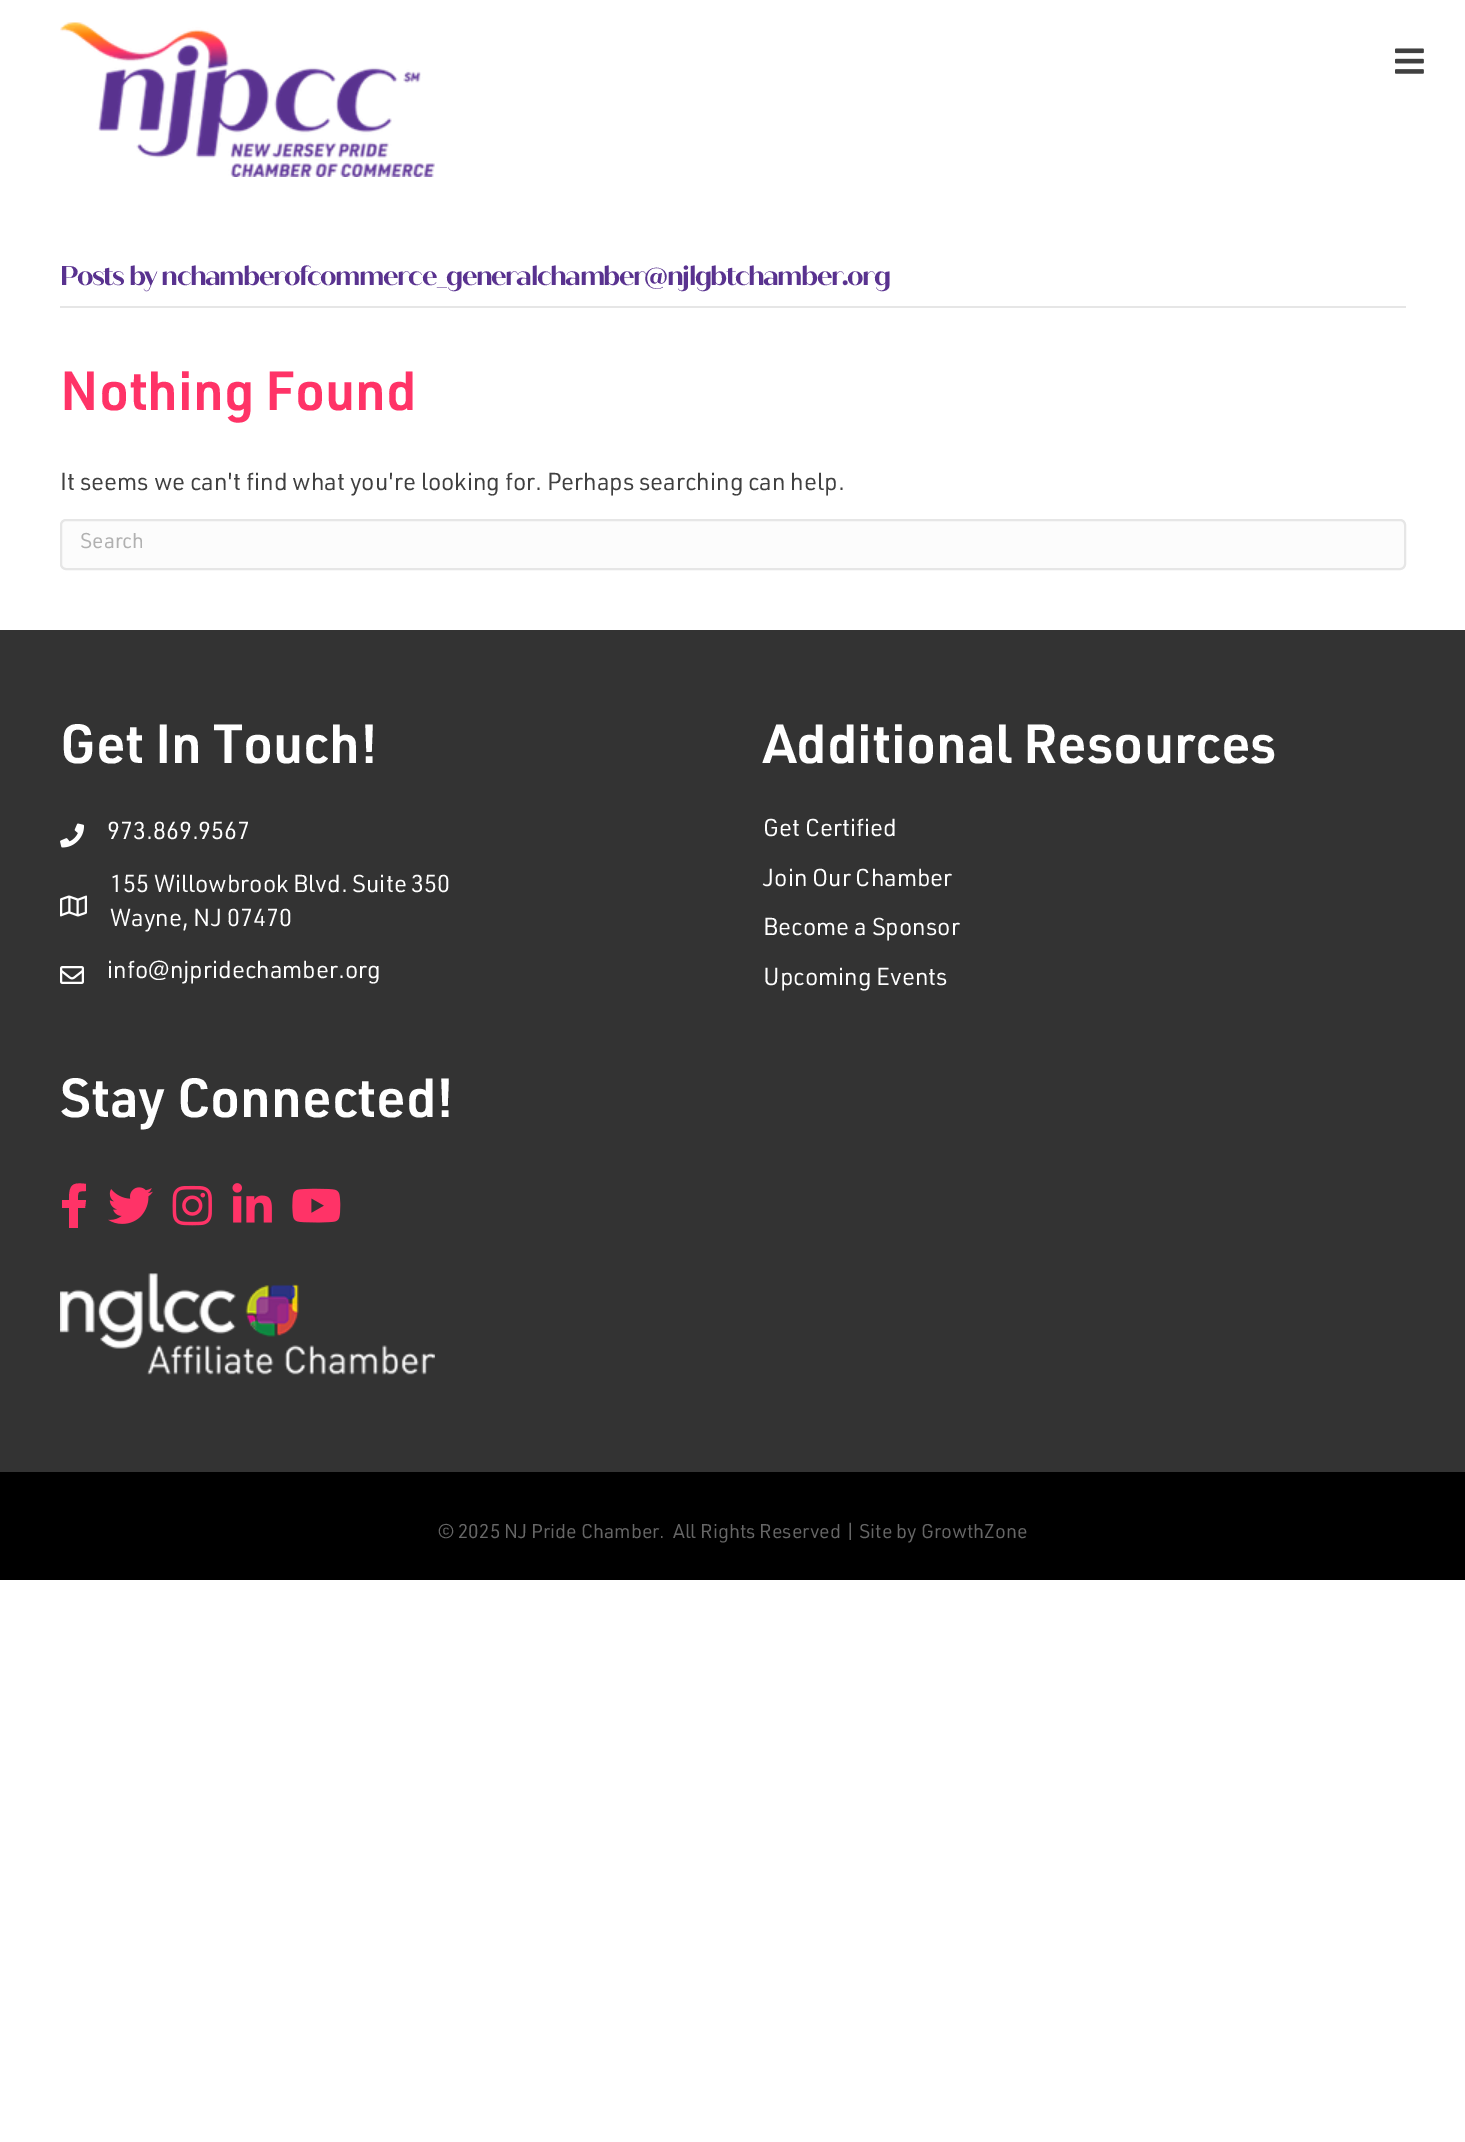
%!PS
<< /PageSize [1465 2142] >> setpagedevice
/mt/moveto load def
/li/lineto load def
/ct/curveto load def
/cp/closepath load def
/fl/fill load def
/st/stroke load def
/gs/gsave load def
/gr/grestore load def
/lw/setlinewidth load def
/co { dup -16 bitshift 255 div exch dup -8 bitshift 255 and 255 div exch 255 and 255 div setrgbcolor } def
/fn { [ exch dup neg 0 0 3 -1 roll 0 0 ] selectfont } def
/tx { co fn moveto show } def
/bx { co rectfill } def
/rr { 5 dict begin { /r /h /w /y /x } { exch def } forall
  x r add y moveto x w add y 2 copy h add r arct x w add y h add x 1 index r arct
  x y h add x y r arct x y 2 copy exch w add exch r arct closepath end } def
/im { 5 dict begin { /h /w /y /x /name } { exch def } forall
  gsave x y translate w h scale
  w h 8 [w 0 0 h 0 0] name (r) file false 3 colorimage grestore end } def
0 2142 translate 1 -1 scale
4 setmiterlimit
0 0 1465 2142 16#FFFFFF bx
(media/1.raw) 60 22 375 155 im
(media/2.raw) 1395 48 29 26 im
60 306 1346 2 16#E6E6E6 bx
16#FCFCFC co
61 520 1344 49 5 rr gs fl gr
16#E6E6E6 co
2 lw
st
0 630 1465 842 16#333333 bx
(media/3.raw) 60 823 24 25 im
(media/4.raw) 60 895 27 22 im
(media/5.raw) 60 966 24 18 im
16#FF3367 co
85 1208 mt 78 1208 li 78 1228 li 69 1228 li 69 1208 li 62 1208 li 62 1200 li 69 1200 li 69 1185 72 1182 86 1184 ct 86 1191 li 77 1191 78 1192 78 1200 ct 86 1200 li cp fl
(media/6.raw) 108 1187 45 37 im
(media/7.raw) 172 1185 40 41 im
(media/8.raw) 232 1183 40 40 im
(media/9.raw) 292 1188 49 35 im
(media/10.raw) 60 1273 375 102 im
0 1472 1465 108 16#000000 bx
/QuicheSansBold-Bold 27 fn
16#59328F co
60 285 mt -1.5 0 (Posts by nchamberofcommerce_generalchamber@njlgbtchamber.org) ashow
(Nothing Found) 60 410 /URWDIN-SemiBold 54 16#FF3367 tx
(It seems we can't find what you're looking for. Perhaps searching can help.) 60 490 /URWDIN-Regular 24 16#404040 tx
(Search) 80 548 /URWDIN-Regular 21 16#B1B1B1 tx
(Get In Touch!) 60 763 /URWDIN-SemiBold 54 16#FFFFFF tx
(973.869.9567) 107 839 /URWDIN-Regular 24 16#FFFFFF tx
(155 Willowbrook Blvd. Suite 350) 110 892 /URWDIN-Regular 24 16#FFFFFF tx
(Wayne, NJ 07470) 110 926 /URWDIN-Regular 24 16#FFFFFF tx
(info@njpridechamber.org) 107 978 /URWDIN-Regular 24 16#FFFFFF tx
(Additional Resources) 763 763 /URWDIN-SemiBold 54 16#FFFFFF tx
(Get Certified) 763 836 /URWDIN-Regular 24 16#FFFFFF tx
(Join Our Chamber) 763 886 /URWDIN-Regular 24 16#FFFFFF tx
(Become a Sponsor) 763 935 /URWDIN-Regular 24 16#FFFFFF tx
(Upcoming Events) 763 985 /URWDIN-Regular 24 16#FFFFFF tx
(Stay Connected!) 60 1117 /URWDIN-SemiBold 54 16#FFFFFF tx
(© 2025 NJ Pride Chamber.) 438 1538 /URWDIN-Regular 19.5 16#666666 tx
(All Rights Reserved | Site by GrowthZone) 673 1538 /URWDIN-Regular 19.5 16#666666 tx
showpage
